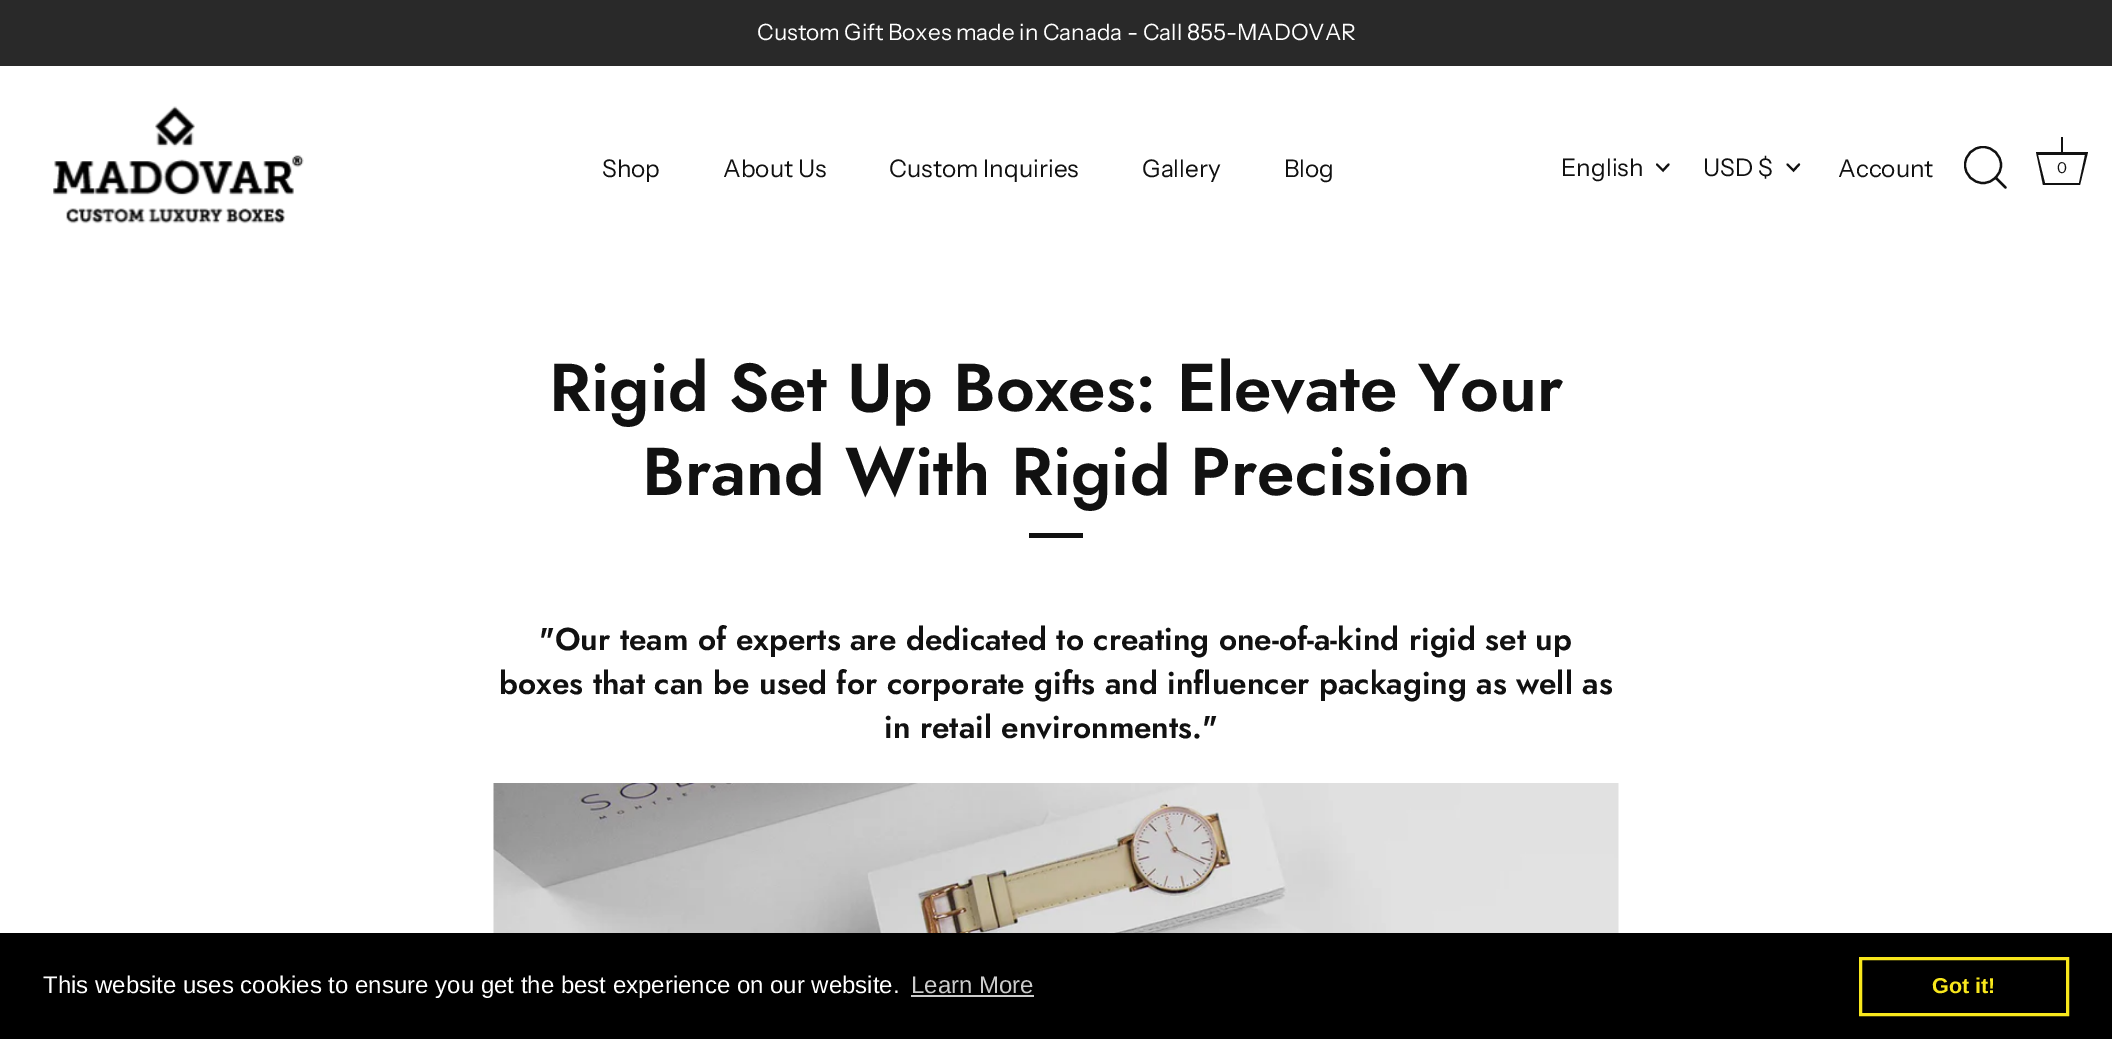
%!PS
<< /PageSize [2112 1039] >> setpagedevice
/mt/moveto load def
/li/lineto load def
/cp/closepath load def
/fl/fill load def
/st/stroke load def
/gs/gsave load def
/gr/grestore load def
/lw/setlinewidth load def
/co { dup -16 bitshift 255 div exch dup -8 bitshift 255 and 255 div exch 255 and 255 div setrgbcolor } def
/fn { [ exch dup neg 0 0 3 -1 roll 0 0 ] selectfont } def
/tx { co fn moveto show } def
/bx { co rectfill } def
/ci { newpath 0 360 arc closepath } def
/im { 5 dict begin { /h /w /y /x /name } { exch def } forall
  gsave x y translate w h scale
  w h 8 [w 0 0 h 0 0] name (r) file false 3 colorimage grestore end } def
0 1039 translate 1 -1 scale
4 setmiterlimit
0 0 2112 1039 16#FFFFFF bx
0 0 2112 66 16#292929 bx
(media/1.raw) 53 106 251 118 im
16#111111 co
2.1 lw
1 setlinecap
1657 164.5 mt 1663 170.5 li 1668.5 164.5 li st
1787.5 164.5 mt 1793.5 170.5 li 1799 164.5 li st
gs
1964 146 43 43 rectclip
2.2 lw
0 setlinecap
1983 165 18 ci st
gr
2.2 lw
1 setlinejoin
2005.5 187.5 mt 1995.5 177.5 li st
2061 137 2 15 16#111111 bx
2085 155 mt 2079 183 li 2045 183 li 2038 155 li 2085 155 li 2088 152 mt 2036 152 li 2043 185 li 2080 185 li cp fl
1029 533 54 5 16#111111 bx
(media/2.raw) 493 783 1126 150 im
0 933 2112 106 16#000000 bx
911 995 123 2 16#CCCCCC bx
16#F8E71C co
3 lw
0 setlinecap
0 setlinejoin
1860.5 958.5 207 56 rectstroke
(Custom Gift Boxes made in Canada - Call 855-MADOVAR) 757 40 /InstrumentSans-Regular 22.5 16#FFFFFF tx
(Shop) 602 177 /InstrumentSans-Regular 24.25 16#111111 tx
(About Us) 723 177 /InstrumentSans-Regular 24.25 16#111111 tx
(Custom Inquiries) 889 177 /InstrumentSans-Regular 24.25 16#111111 tx
(Gallery) 1142 177 /InstrumentSans-Regular 24.25 16#111111 tx
(Blog) 1284 177 /InstrumentSans-Regular 24.25 16#111111 tx
(English) 1561 176 /InstrumentSans-Regular 24.25 16#111111 tx
(USD $) 1703 176 /InstrumentSans-Regular 24.25 16#111111 tx
(Account) 1838 177 /InstrumentSans-Regular 24.25 16#111111 tx
(0) 2057 173 /InstrumentSans-Regular 15 16#111111 tx
(Rigid Set Up Boxes: Elevate Your) 549 411 /Jost-SemiBold 67.5 16#111111 tx
(Brand With Rigid Precision) 642 495 /Jost-SemiBold 67.5 16#111111 tx
("Our team of experts are dedicated to creating one-of-a-kind rigid set up) 539 650 /Jost-SemiBold 31.5 16#111111 tx
(boxes that can be used for corporate gifts and influencer packaging as well as) 499 694 /Jost-SemiBold 31.5 16#111111 tx
(in retail environments.") 884 738 /Jost-SemiBold 31.5 16#111111 tx
(This website uses cookies to ensure you get the best experience on our website.) 43 993 /LiberationSans-Regular 24 16#FFFFFF tx
(Learn More) 911 993 /LiberationSans-Regular 24 16#CCCCCC tx
(Got it!) 1932 993 /LiberationSans-Bold 21.5 16#F8E71C tx
showpage
